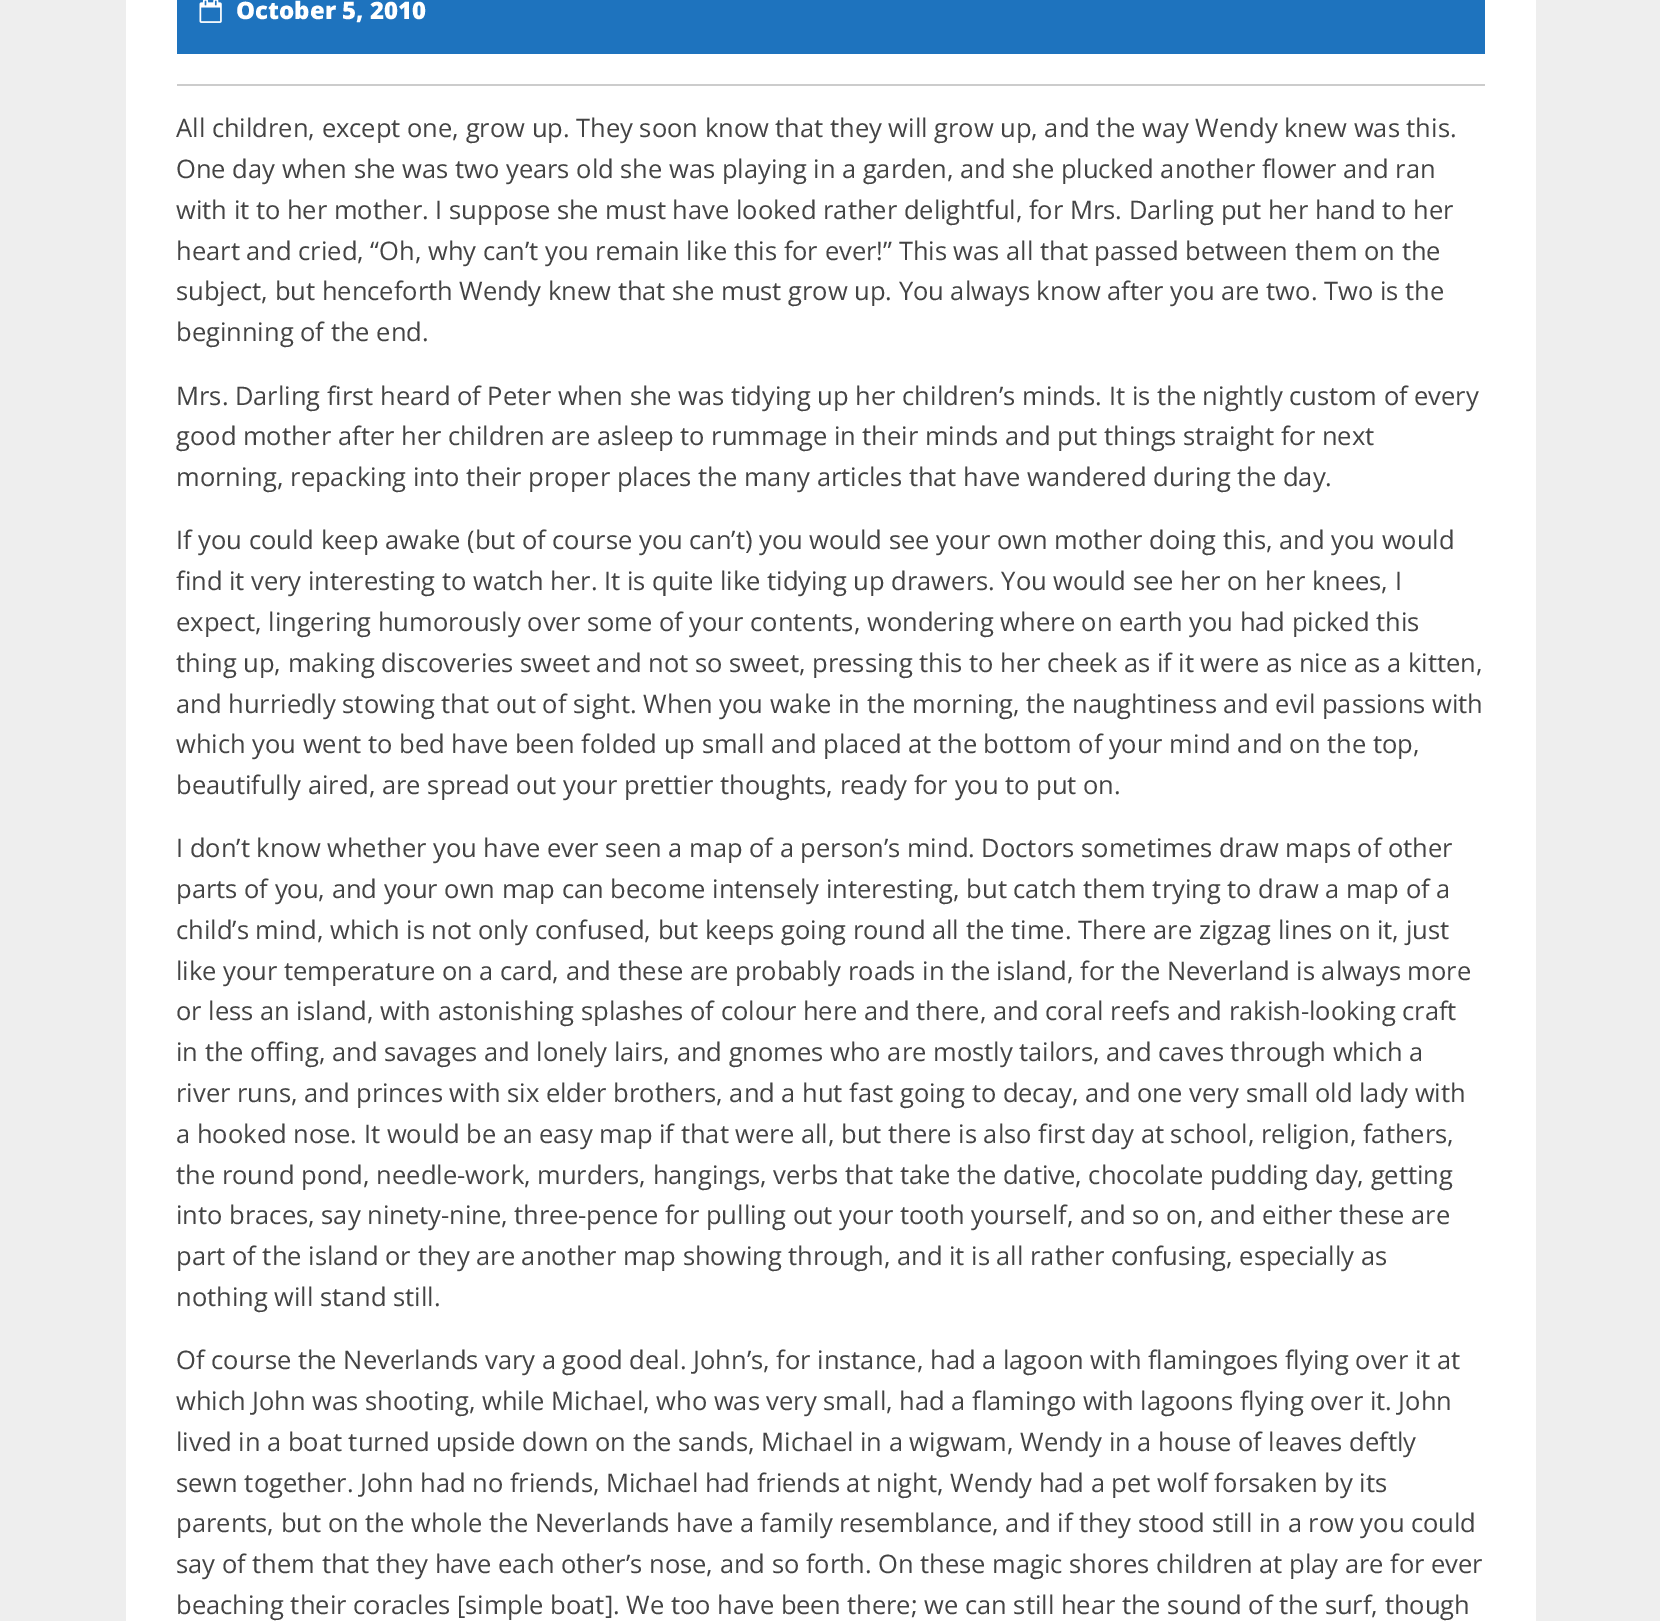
%!PS
<< /PageSize [1660 1621] >> setpagedevice
/co { dup -16 bitshift 255 div exch dup -8 bitshift 255 and 255 div exch 255 and 255 div setrgbcolor } def
/fn { [ exch dup neg 0 0 3 -1 roll 0 0 ] selectfont } def
/tx { co fn moveto show } def
/bx { co rectfill } def
/im { 5 dict begin { /h /w /y /x /name } { exch def } forall
  gsave x y translate w h scale
  w h 8 [w 0 0 h 0 0] name (r) file false 3 colorimage grestore end } def
0 1621 translate 1 -1 scale
4 setmiterlimit
0 0 1660 1621 16#EEEEEE bx
126 0 1410 1621 16#FFFFFF bx
177 0 1308 54 16#1E73BE bx
(media/1.raw) 199 0 23 23 im
177 84 1308 2 16#CCCCCC bx
(October 5, 2010) 236 19 /OpenSans-ExtraBold 24 16#FFFFFF tx
(All children, except one, grow up. They soon know that they will grow up, and the way Wendy knew was this.) 176 137 /OpenSans-Regular 25.5 16#444444 tx
(One day when she was two years old she was playing in a garden, and she plucked another flower and ran) 176 178 /OpenSans-Regular 25.5 16#444444 tx
(with it to her mother. I suppose she must have looked rather delightful, for Mrs. Darling put her hand to her) 176 219 /OpenSans-Regular 25.5 16#444444 tx
(heart and cried, “Oh, why can’t you remain like this for ever!” This was all that passed between them on the) 176 260 /OpenSans-Regular 25.5 16#444444 tx
(subject, but henceforth Wendy knew that she must grow up. You always know after you are two. Two is the) 176 300 /OpenSans-Regular 25.5 16#444444 tx
(beginning of the end.) 176 341 /OpenSans-Regular 25.5 16#444444 tx
(Mrs. Darling first heard of Peter when she was tidying up her children’s minds. It is the nightly custom of every) 176 405 /OpenSans-Regular 25.5 16#444444 tx
(good mother after her children are asleep to rummage in their minds and put things straight for next) 176 445 /OpenSans-Regular 25.5 16#444444 tx
(morning, repacking into their proper places the many articles that have wandered during the day.) 176 486 /OpenSans-Regular 25.5 16#444444 tx
(If you could keep awake \(but of course you can’t\) you would see your own mother doing this, and you would) 176 549 /OpenSans-Regular 25.5 16#444444 tx
(find it very interesting to watch her. It is quite like tidying up drawers. You would see her on her knees, I) 176 590 /OpenSans-Regular 25.5 16#444444 tx
(expect, lingering humorously over some of your contents, wondering where on earth you had picked this) 176 631 /OpenSans-Regular 25.5 16#444444 tx
(thing up, making discoveries sweet and not so sweet, pressing this to her cheek as if it were as nice as a kitten,) 176 672 /OpenSans-Regular 25.5 16#444444 tx
(and hurriedly stowing that out of sight. When you wake in the morning, the naughtiness and evil passions with) 176 713 /OpenSans-Regular 25.5 16#444444 tx
(which you went to bed have been folded up small and placed at the bottom of your mind and on the top,) 176 753 /OpenSans-Regular 25.5 16#444444 tx
(beautifully aired, are spread out your prettier thoughts, ready for you to put on.) 176 794 /OpenSans-Regular 25.5 16#444444 tx
(I don’t know whether you have ever seen a map of a person’s mind. Doctors sometimes draw maps of other) 176 857 /OpenSans-Regular 25.5 16#444444 tx
(parts of you, and your own map can become intensely interesting, but catch them trying to draw a map of a) 176 898 /OpenSans-Regular 25.5 16#444444 tx
(child’s mind, which is not only confused, but keeps going round all the time. There are zigzag lines on it, just) 176 939 /OpenSans-Regular 25.5 16#444444 tx
(like your temperature on a card, and these are probably roads in the island, for the Neverland is always more) 176 980 /OpenSans-Regular 25.5 16#444444 tx
(or less an island, with astonishing splashes of colour here and there, and coral reefs and rakish-looking craft) 176 1020 /OpenSans-Regular 25.5 16#444444 tx
(in the offing, and savages and lonely lairs, and gnomes who are mostly tailors, and caves through which a) 176 1061 /OpenSans-Regular 25.5 16#444444 tx
(river runs, and princes with six elder brothers, and a hut fast going to decay, and one very small old lady with) 176 1102 /OpenSans-Regular 25.5 16#444444 tx
(a hooked nose. It would be an easy map if that were all, but there is also first day at school, religion, fathers,) 176 1143 /OpenSans-Regular 25.5 16#444444 tx
(the round pond, needle-work, murders, hangings, verbs that take the dative, chocolate pudding day, getting) 176 1184 /OpenSans-Regular 25.5 16#444444 tx
(into braces, say ninety-nine, three-pence for pulling out your tooth yourself, and so on, and either these are) 176 1224 /OpenSans-Regular 25.5 16#444444 tx
(part of the island or they are another map showing through, and it is all rather confusing, especially as) 176 1265 /OpenSans-Regular 25.5 16#444444 tx
(nothing will stand still.) 176 1306 /OpenSans-Regular 25.5 16#444444 tx
(Of course the Neverlands vary a good deal. John’s, for instance, had a lagoon with flamingoes flying over it at) 176 1369 /OpenSans-Regular 25.5 16#444444 tx
(which John was shooting, while Michael, who was very small, had a flamingo with lagoons flying over it. John) 176 1410 /OpenSans-Regular 25.5 16#444444 tx
(lived in a boat turned upside down on the sands, Michael in a wigwam, Wendy in a house of leaves deftly) 176 1451 /OpenSans-Regular 25.5 16#444444 tx
(sewn together. John had no friends, Michael had friends at night, Wendy had a pet wolf forsaken by its) 176 1492 /OpenSans-Regular 25.5 16#444444 tx
(parents, but on the whole the Neverlands have a family resemblance, and if they stood still in a row you could) 176 1532 /OpenSans-Regular 25.5 16#444444 tx
(say of them that they have each other’s nose, and so forth. On these magic shores children at play are for ever) 176 1573 /OpenSans-Regular 25.5 16#444444 tx
(beaching their coracles [simple boat]. We too have been there; we can still hear the sound of the surf, though) 176 1614 /OpenSans-Regular 25.5 16#444444 tx
showpage
